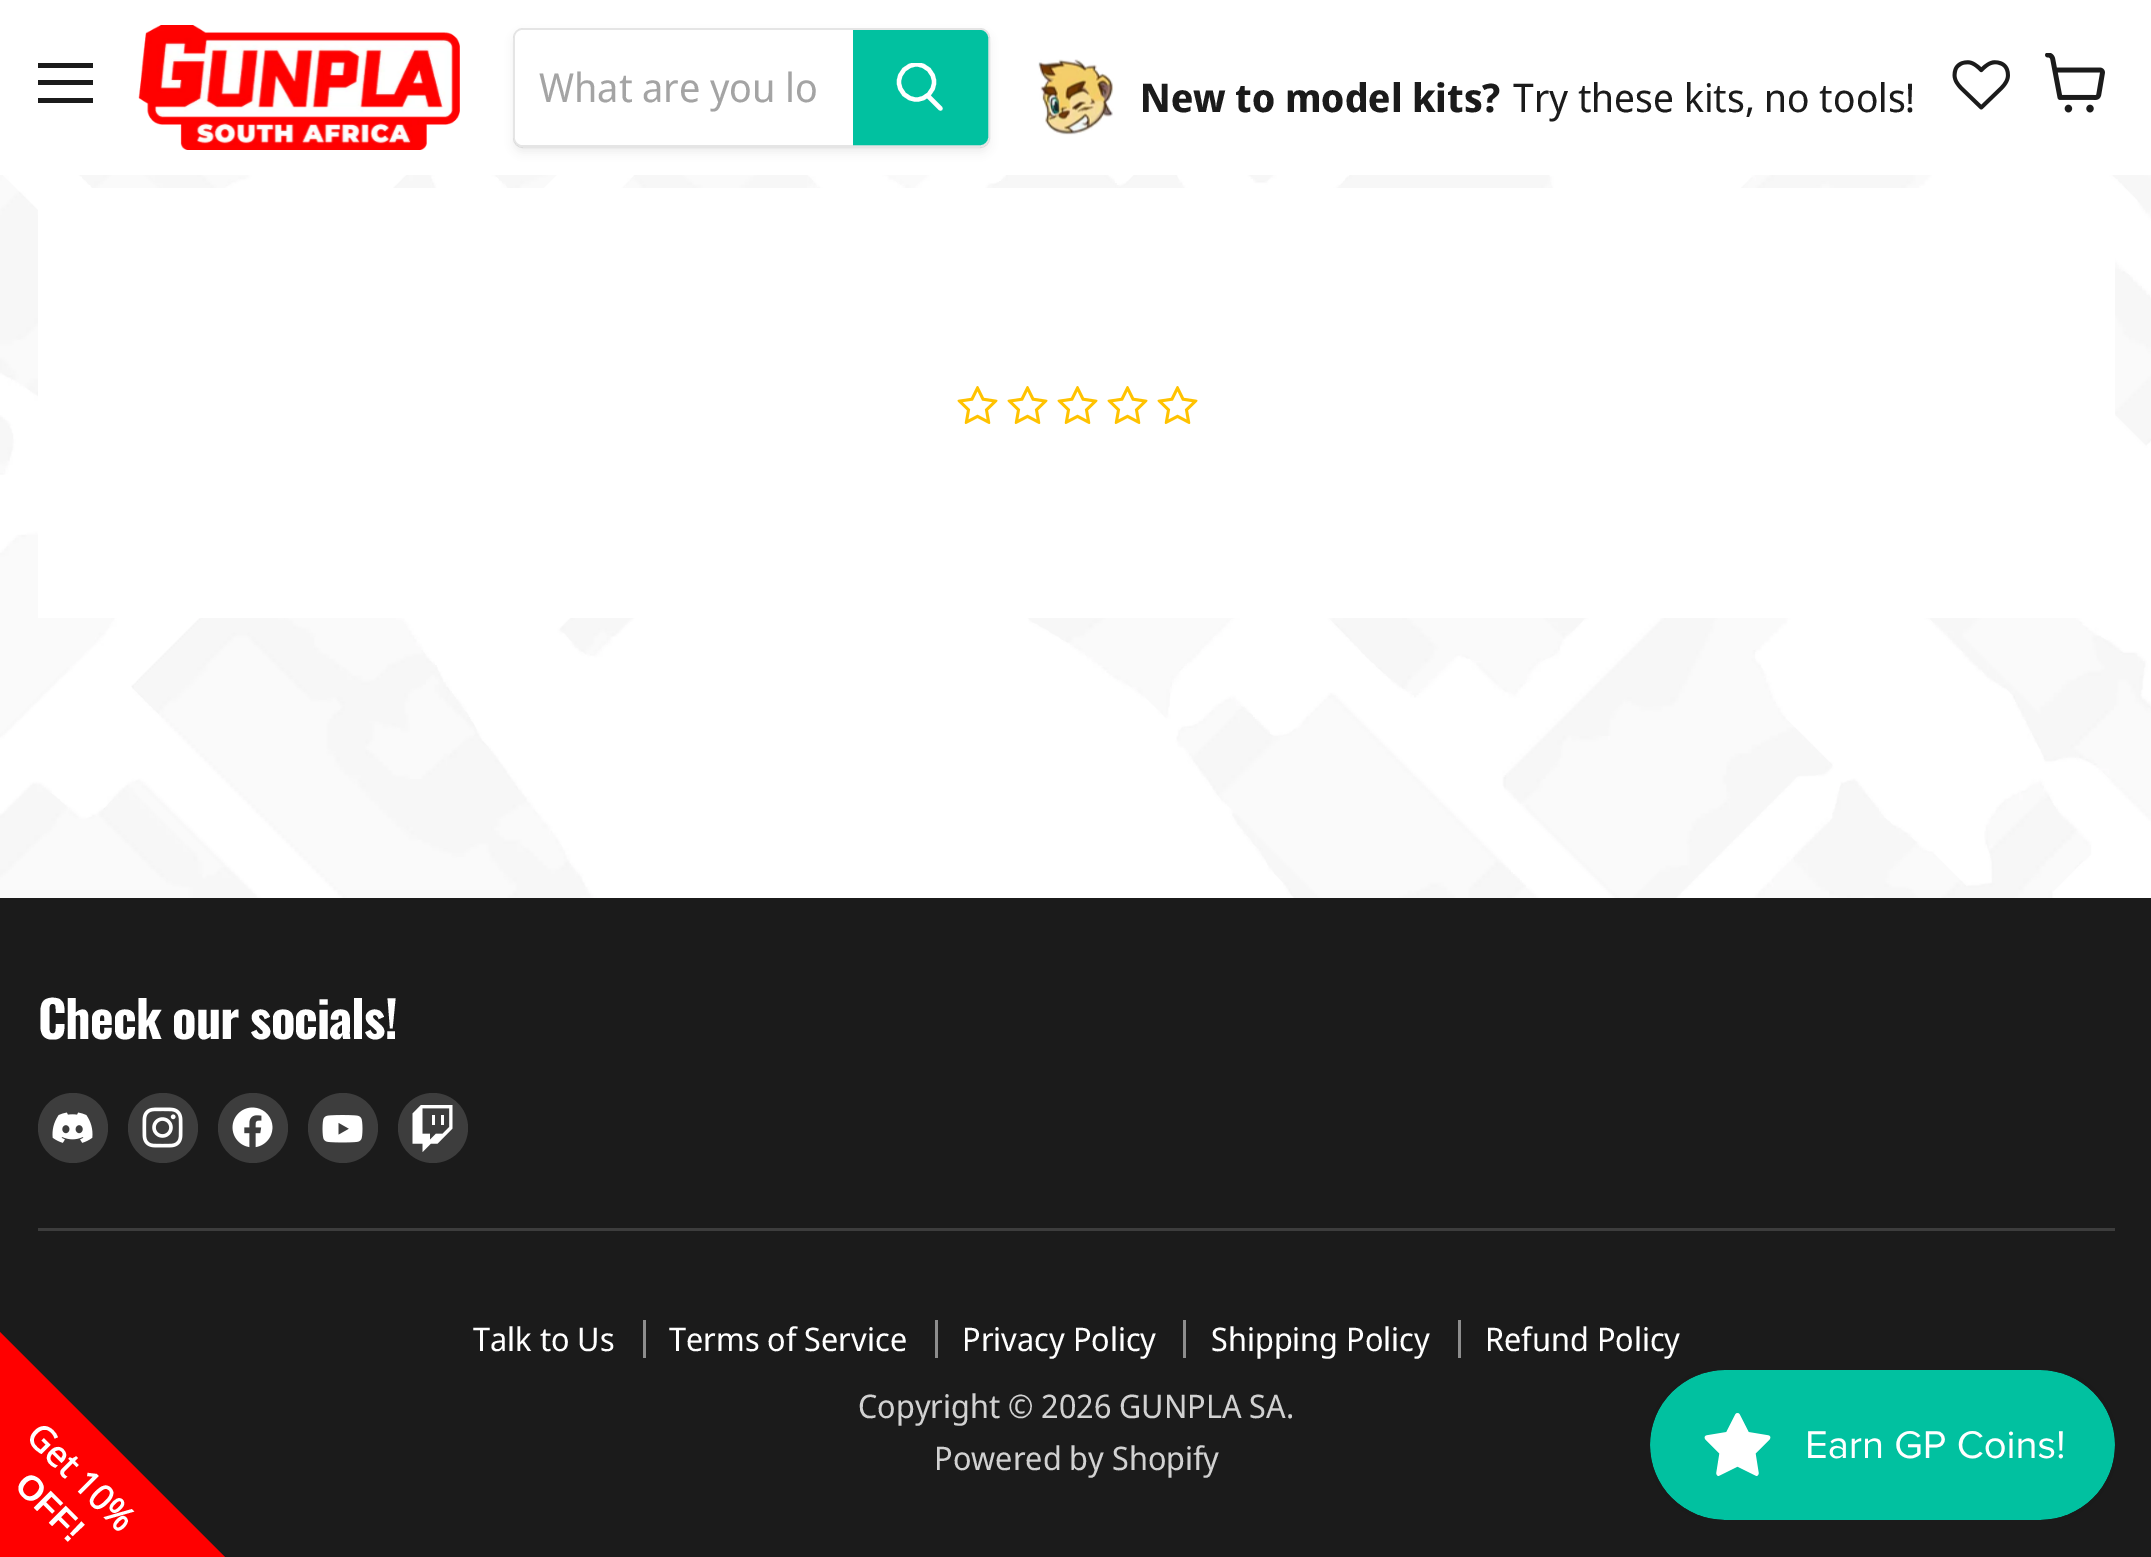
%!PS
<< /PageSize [2151 1557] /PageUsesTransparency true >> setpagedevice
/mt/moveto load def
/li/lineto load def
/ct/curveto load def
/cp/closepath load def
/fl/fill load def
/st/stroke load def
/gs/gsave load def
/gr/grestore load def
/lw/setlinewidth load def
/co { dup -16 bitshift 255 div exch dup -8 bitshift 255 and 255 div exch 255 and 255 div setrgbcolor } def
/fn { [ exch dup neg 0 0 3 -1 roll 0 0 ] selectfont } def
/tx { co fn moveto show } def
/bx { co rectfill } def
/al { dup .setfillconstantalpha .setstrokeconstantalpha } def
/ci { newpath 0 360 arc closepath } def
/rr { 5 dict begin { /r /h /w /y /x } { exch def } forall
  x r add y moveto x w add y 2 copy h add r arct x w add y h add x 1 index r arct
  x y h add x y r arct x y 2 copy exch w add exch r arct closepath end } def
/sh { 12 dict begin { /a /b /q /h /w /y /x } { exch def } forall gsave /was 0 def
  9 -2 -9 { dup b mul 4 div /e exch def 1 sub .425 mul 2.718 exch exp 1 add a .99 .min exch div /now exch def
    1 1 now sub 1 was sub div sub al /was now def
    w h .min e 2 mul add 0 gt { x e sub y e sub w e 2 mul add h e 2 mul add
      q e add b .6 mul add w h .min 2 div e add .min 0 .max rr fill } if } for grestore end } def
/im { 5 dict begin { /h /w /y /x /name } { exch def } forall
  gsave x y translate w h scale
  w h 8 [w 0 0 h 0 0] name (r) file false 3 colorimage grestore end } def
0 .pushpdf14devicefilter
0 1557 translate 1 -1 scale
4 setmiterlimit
0 0 2151 1557 16#FFFFFF bx
(media/1.raw) 0 175 2151 723 im
38 63 55 5 16#1B1B1B bx
38 80 55 5 16#1B1B1B bx
38 98 55 5 16#1B1B1B bx
(media/2.raw) 138 25 322 125 im
gs
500 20 mt 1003 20 li 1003 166 li 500 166 li cp 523 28 mt 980 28 li 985.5 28 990 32.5 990 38 ct 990 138 li 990 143.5 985.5 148 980 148 ct 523 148 li 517.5 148 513 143.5 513 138 ct 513 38 li 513 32.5 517.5 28 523 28 ct cp eoclip newpath
16#7D7D7D co
513 33 477 120 10 4 .11 sh
gr
0.2 al
16#7D7D7D co
3 lw
514.5 29.5 474 117 8.5 rr st
1 al
16#FFFFFF co
523 30 mt 853 30 li 853 145 li 523 145 li 518.5 145 515 141.5 515 137 ct 515 38 li 515 33.5 518.5 30 523 30 ct cp fl
16#01C1A0 co
854.5 31.5 mt 980 31.5 li 983.5 31.5 986.5 34.5 986.5 38 ct 986.5 137 li 986.5 140.5 983.5 143.5 980 143.5 ct 854.5 143.5 li cp gs fl gr
st
16#FFFFFF co
4.3 lw
1 setlinecap
940.5 108.5 mt 928.5 96.5 li st
gs
895 63 50 52 rectclip
0 setlinecap
916.5 82 17.5 ci st
gr
(media/3.raw) 1038 59 76 76 im
(media/4.raw) 1952 60 58 50 im
(media/5.raw) 2045 53 60 60 im
38 188 2077 430 16#FFFFFF bx
(media/6.raw) 957 386 41 38 im
(media/6.raw) 1007 386 41 38 im
(media/6.raw) 1057 386 41 38 im
(media/6.raw) 1107 386 41 38 im
(media/6.raw) 1157 386 41 38 im
0 898 2151 659 16#1B1B1B bx
38 1228 2077 3 16#3D3D3D bx
73 1128 35 ci fl
(media/7.raw) 52 1112 41 31 im
163 1128 35 ci fl
(media/8.raw) 142 1107 41 41 im
253 1128 35 ci fl
(media/9.raw) 232 1107 41 41 im
343 1128 35 ci fl
(media/10.raw) 322 1115 41 28 im
433 1128 35 ci fl
(media/11.raw) 412 1105 41 47 im
643 1320 3 38 16#8D8D8D bx
935 1320 3 38 16#8D8D8D bx
1183 1320 3 38 16#8D8D8D bx
1458 1320 3 38 16#8D8D8D bx
(media/12.raw) 1650 1370 465 150 im
16#FF0000 co
0 1332 mt 225 1557 li 0 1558 li cp fl
(What are you lo) 539 102 /NotoSansDisplay-Regular 40 16#A4A4A4 tx
(New to model kits?) 1140 112 /NotoSansDisplay-Bold 39.4 16#1B1B1B tx
(Try these kits, no tools!) 1513 112 /NotoSansDisplay-Regular 39.4 16#1B1B1B tx
/Oswald-Bold 50.5 fn
16#FFFFFF co
38 1039 mt -1 0 (Check our socials!) ashow
(Talk to Us) 473 1351 /NotoSansDisplay-Regular 32.5 16#FFFFFF tx
(Terms of Service) 669 1351 /NotoSansDisplay-Regular 32.5 16#FFFFFF tx
(Privacy Policy) 962 1351 /NotoSansDisplay-Regular 32.5 16#FFFFFF tx
(Shipping Policy) 1211 1351 /NotoSansDisplay-Regular 32.5 16#FFFFFF tx
(Refund Policy) 1485 1351 /NotoSansDisplay-Regular 32.5 16#FFFFFF tx
(Copyright © 2026 GUNPLA SA.) 858 1418 /NotoSansDisplay-Regular 32.5 16#D1D1D1 tx
(Powered by Shopify) 934 1470 /NotoSansDisplay-Regular 32.5 16#D1D1D1 tx
/OpenSans-Bold 35 fn
16#FFFFFF co
gs 24 1438 translate 45 rotate 0 0 mt (Get 10%) show gr
/LiberationSans-Bold 35 fn
gs 13 1487 translate 45 rotate 0 0 mt (OFF!) show gr
.poppdf14devicefilter showpage
